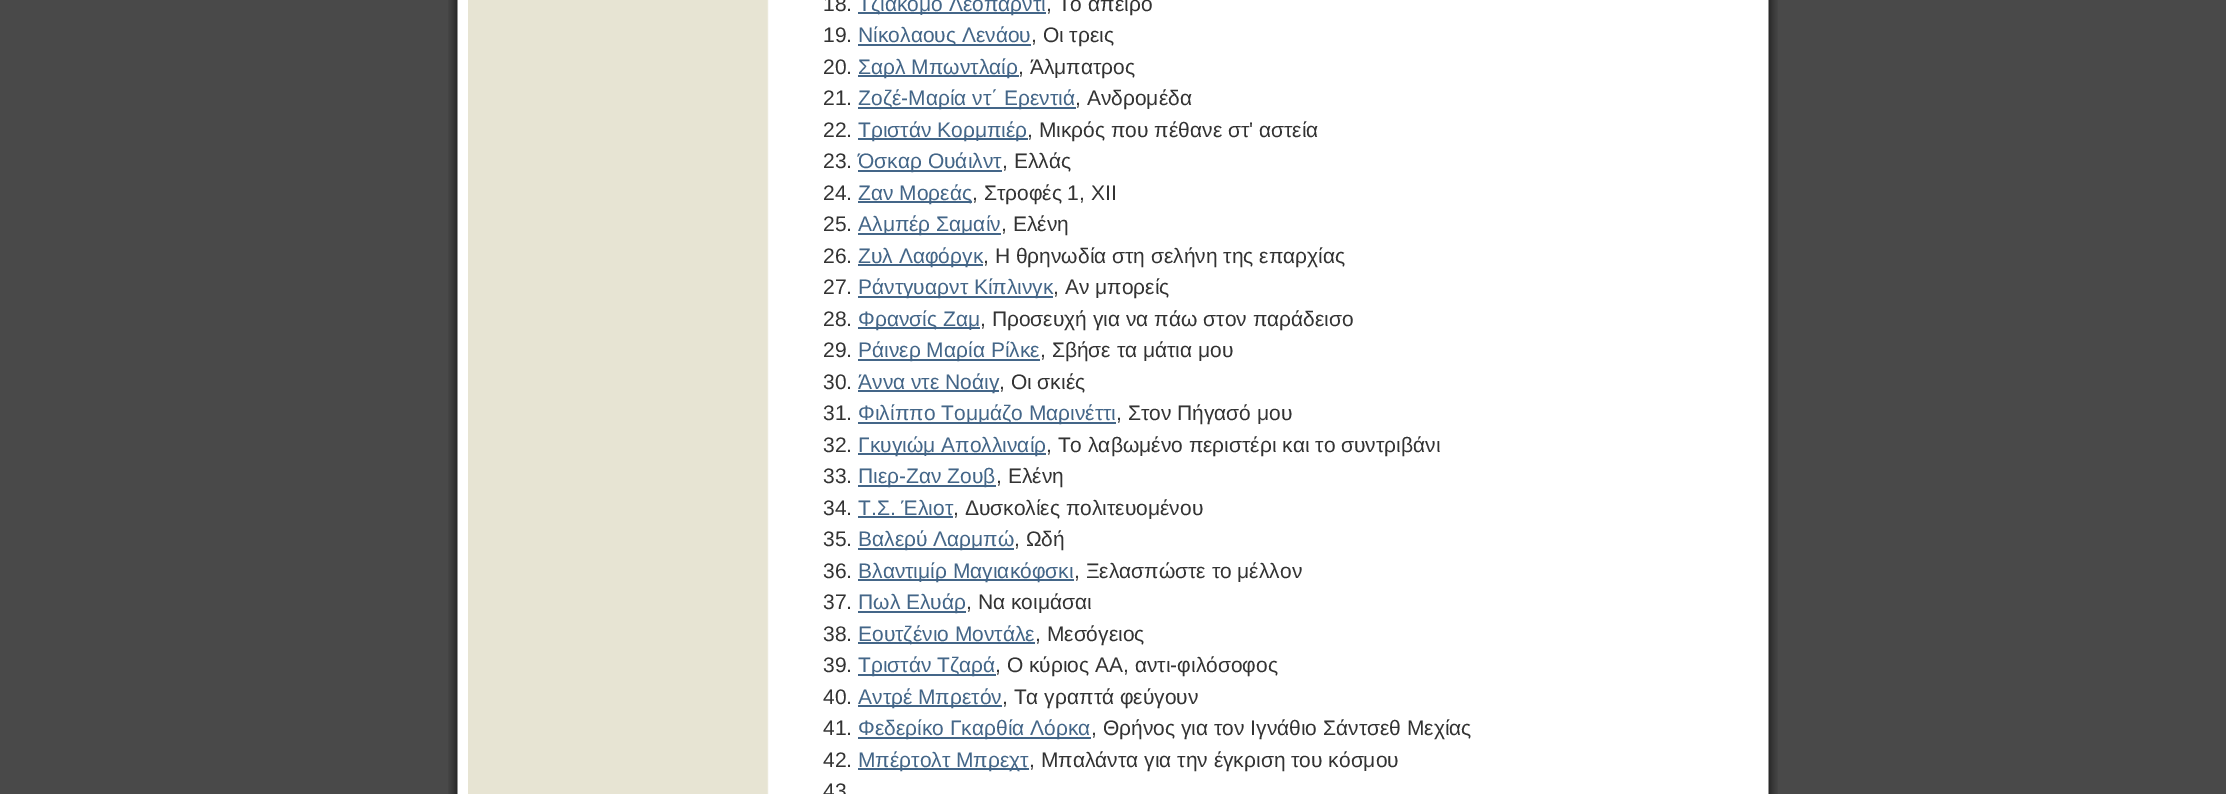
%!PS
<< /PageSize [2226 794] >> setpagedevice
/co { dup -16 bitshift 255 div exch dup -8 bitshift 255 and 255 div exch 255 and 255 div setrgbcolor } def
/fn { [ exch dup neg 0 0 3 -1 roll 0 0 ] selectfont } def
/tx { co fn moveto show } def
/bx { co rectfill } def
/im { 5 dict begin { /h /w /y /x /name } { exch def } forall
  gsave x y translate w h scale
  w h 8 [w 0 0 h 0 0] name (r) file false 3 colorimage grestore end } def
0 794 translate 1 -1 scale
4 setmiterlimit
0 0 2226 794 16#494949 bx
(media/1.raw) 448 0 1330 794 im
(media/2.raw) 468 0 301 794 im
858 12 188 2 16#446688 bx
858 44 173 2 16#446688 bx
858 75 161 2 16#446688 bx
858 107 218 2 16#446688 bx
858 138 170 2 16#446688 bx
858 170 144 2 16#446688 bx
858 201 114 2 16#446688 bx
858 233 143 2 16#446688 bx
858 264 125 2 16#446688 bx
858 296 195 2 16#446688 bx
858 327 122 2 16#446688 bx
858 359 182 2 16#446688 bx
858 390 141 2 16#446688 bx
858 422 258 2 16#446688 bx
858 453 188 2 16#446688 bx
858 485 138 2 16#446688 bx
858 516 95 2 16#446688 bx
858 548 156 2 16#446688 bx
858 579 216 2 16#446688 bx
858 611 108 2 16#446688 bx
858 642 177 2 16#446688 bx
858 674 138 2 16#446688 bx
858 705 144 2 16#446688 bx
858 737 233 2 16#446688 bx
858 768 171 2 16#446688 bx
(18.) 823 11 /LiberationSans-Regular 21 16#333333 tx
(Τζιάκομο Λεοπάρντι) 858 11 /LiberationSans-Regular 21 16#446688 tx
(, Το άπειρο) 1046 11 /LiberationSans-Regular 21 16#333333 tx
(19.) 823 42 /LiberationSans-Regular 21 16#333333 tx
(Νίκολαους Λενάου) 858 42 /LiberationSans-Regular 21 16#446688 tx
(, Οι τρεις) 1031 42 /LiberationSans-Regular 21 16#333333 tx
(20.) 823 74 /LiberationSans-Regular 21 16#333333 tx
(Σαρλ Μπωντλαίρ) 858 74 /LiberationSans-Regular 21 16#446688 tx
(, Άλμπατρος) 1018 74 /LiberationSans-Regular 21 16#333333 tx
(21.) 823 105 /LiberationSans-Regular 21 16#333333 tx
(Ζοζέ-Μαρία ντ΄ Ερεντιά) 858 105 /LiberationSans-Regular 21 16#446688 tx
(, Ανδρομέδα) 1075 105 /LiberationSans-Regular 21 16#333333 tx
(22.) 823 137 /LiberationSans-Regular 21 16#333333 tx
(Τριστάν Κορμπιέρ) 858 137 /LiberationSans-Regular 21 16#446688 tx
(, Μικρός που πέθανε στ' αστεία) 1027 137 /LiberationSans-Regular 21 16#333333 tx
(23.) 823 168 /LiberationSans-Regular 21 16#333333 tx
(Όσκαρ Ουάιλντ) 858 168 /LiberationSans-Regular 21 16#446688 tx
(, Ελλάς) 1002 168 /LiberationSans-Regular 21 16#333333 tx
(24.) 823 200 /LiberationSans-Regular 21 16#333333 tx
(Ζαν Μορεάς) 858 200 /LiberationSans-Regular 21 16#446688 tx
(, Στροφές 1, XII) 972 200 /LiberationSans-Regular 21 16#333333 tx
(25.) 823 231 /LiberationSans-Regular 21 16#333333 tx
(Αλμπέρ Σαμαίν) 858 231 /LiberationSans-Regular 21 16#446688 tx
(, Ελένη) 1001 231 /LiberationSans-Regular 21 16#333333 tx
(26.) 823 263 /LiberationSans-Regular 21 16#333333 tx
(Ζυλ Λαφόργκ) 858 263 /LiberationSans-Regular 21 16#446688 tx
(, Η θρηνωδία στη σελήνη της επαρχίας) 983 263 /LiberationSans-Regular 21 16#333333 tx
(27.) 823 294 /LiberationSans-Regular 21 16#333333 tx
(Ράντγυαρντ Κίπλινγκ) 858 294 /LiberationSans-Regular 21 16#446688 tx
(, Αν μπορείς) 1053 294 /LiberationSans-Regular 21 16#333333 tx
(28.) 823 326 /LiberationSans-Regular 21 16#333333 tx
(Φρανσίς Ζαμ) 858 326 /LiberationSans-Regular 21 16#446688 tx
(, Προσευχή για να πάω στον παράδεισο) 980 326 /LiberationSans-Regular 21 16#333333 tx
(29.) 823 357 /LiberationSans-Regular 21 16#333333 tx
(Ράινερ Μαρία Ρίλκε) 858 357 /LiberationSans-Regular 21 16#446688 tx
(, Σβήσε τα μάτια μου) 1040 357 /LiberationSans-Regular 21 16#333333 tx
(30.) 823 389 /LiberationSans-Regular 21 16#333333 tx
(Άννα ντε Νοάιγ) 858 389 /LiberationSans-Regular 21 16#446688 tx
(, Οι σκιές) 999 389 /LiberationSans-Regular 21 16#333333 tx
(31.) 823 420 /LiberationSans-Regular 21 16#333333 tx
(Φιλίππο Τομμάζο Μαρινέττι) 858 420 /LiberationSans-Regular 21 16#446688 tx
(, Στον Πήγασό μου) 1116 420 /LiberationSans-Regular 21 16#333333 tx
(32.) 823 452 /LiberationSans-Regular 21 16#333333 tx
(Γκυγιώμ Απολλιναίρ) 858 452 /LiberationSans-Regular 21 16#446688 tx
(, Το λαβωμένο περιστέρι και το συντριβάνι) 1046 452 /LiberationSans-Regular 21 16#333333 tx
(33.) 823 483 /LiberationSans-Regular 21 16#333333 tx
(Πιερ-Ζαν Ζουβ) 858 483 /LiberationSans-Regular 21 16#446688 tx
(, Ελένη) 996 483 /LiberationSans-Regular 21 16#333333 tx
(34.) 823 515 /LiberationSans-Regular 21 16#333333 tx
(Τ.Σ. Έλιοτ) 858 515 /LiberationSans-Regular 21 16#446688 tx
(, Δυσκολίες πολιτευομένου) 953 515 /LiberationSans-Regular 21 16#333333 tx
(35.) 823 546 /LiberationSans-Regular 21 16#333333 tx
(Βαλερύ Λαρμπώ) 858 546 /LiberationSans-Regular 21 16#446688 tx
(, Ωδή) 1014 546 /LiberationSans-Regular 21 16#333333 tx
(36.) 823 578 /LiberationSans-Regular 21 16#333333 tx
(Βλαντιμίρ Μαγιακόφσκι) 858 578 /LiberationSans-Regular 21 16#446688 tx
(, Ξελασπώστε το μέλλον) 1074 578 /LiberationSans-Regular 21 16#333333 tx
(37.) 823 609 /LiberationSans-Regular 21 16#333333 tx
(Πωλ Ελυάρ) 858 609 /LiberationSans-Regular 21 16#446688 tx
(, Να κοιμάσαι) 966 609 /LiberationSans-Regular 21 16#333333 tx
(38.) 823 641 /LiberationSans-Regular 21 16#333333 tx
(Εουτζένιο Μοντάλε) 858 641 /LiberationSans-Regular 21 16#446688 tx
(, Μεσόγειος) 1035 641 /LiberationSans-Regular 21 16#333333 tx
(39.) 823 672 /LiberationSans-Regular 21 16#333333 tx
(Τριστάν Τζαρά) 858 672 /LiberationSans-Regular 21 16#446688 tx
(, Ο κύριος ΑΑ, αντι-φιλόσοφος) 995 672 /LiberationSans-Regular 21 16#333333 tx
(40.) 823 704 /LiberationSans-Regular 21 16#333333 tx
(Αντρέ Μπρετόν) 858 704 /LiberationSans-Regular 21 16#446688 tx
(, Τα γραπτά φεύγουν) 1002 704 /LiberationSans-Regular 21 16#333333 tx
(41.) 823 735 /LiberationSans-Regular 21 16#333333 tx
(Φεδερίκο Γκαρθία Λόρκα) 858 735 /LiberationSans-Regular 21 16#446688 tx
(, Θρήνος για τον Ιγνάθιο Σάντσεθ Μεχίας) 1091 735 /LiberationSans-Regular 21 16#333333 tx
(42.) 823 767 /LiberationSans-Regular 21 16#333333 tx
(Μπέρτολτ Μπρεχτ) 858 767 /LiberationSans-Regular 21 16#446688 tx
(, Μπαλάντα για την έγκριση του κόσμου) 1029 767 /LiberationSans-Regular 21 16#333333 tx
(43) 823 798 /LiberationSans-Regular 21 16#333333 tx
showpage
